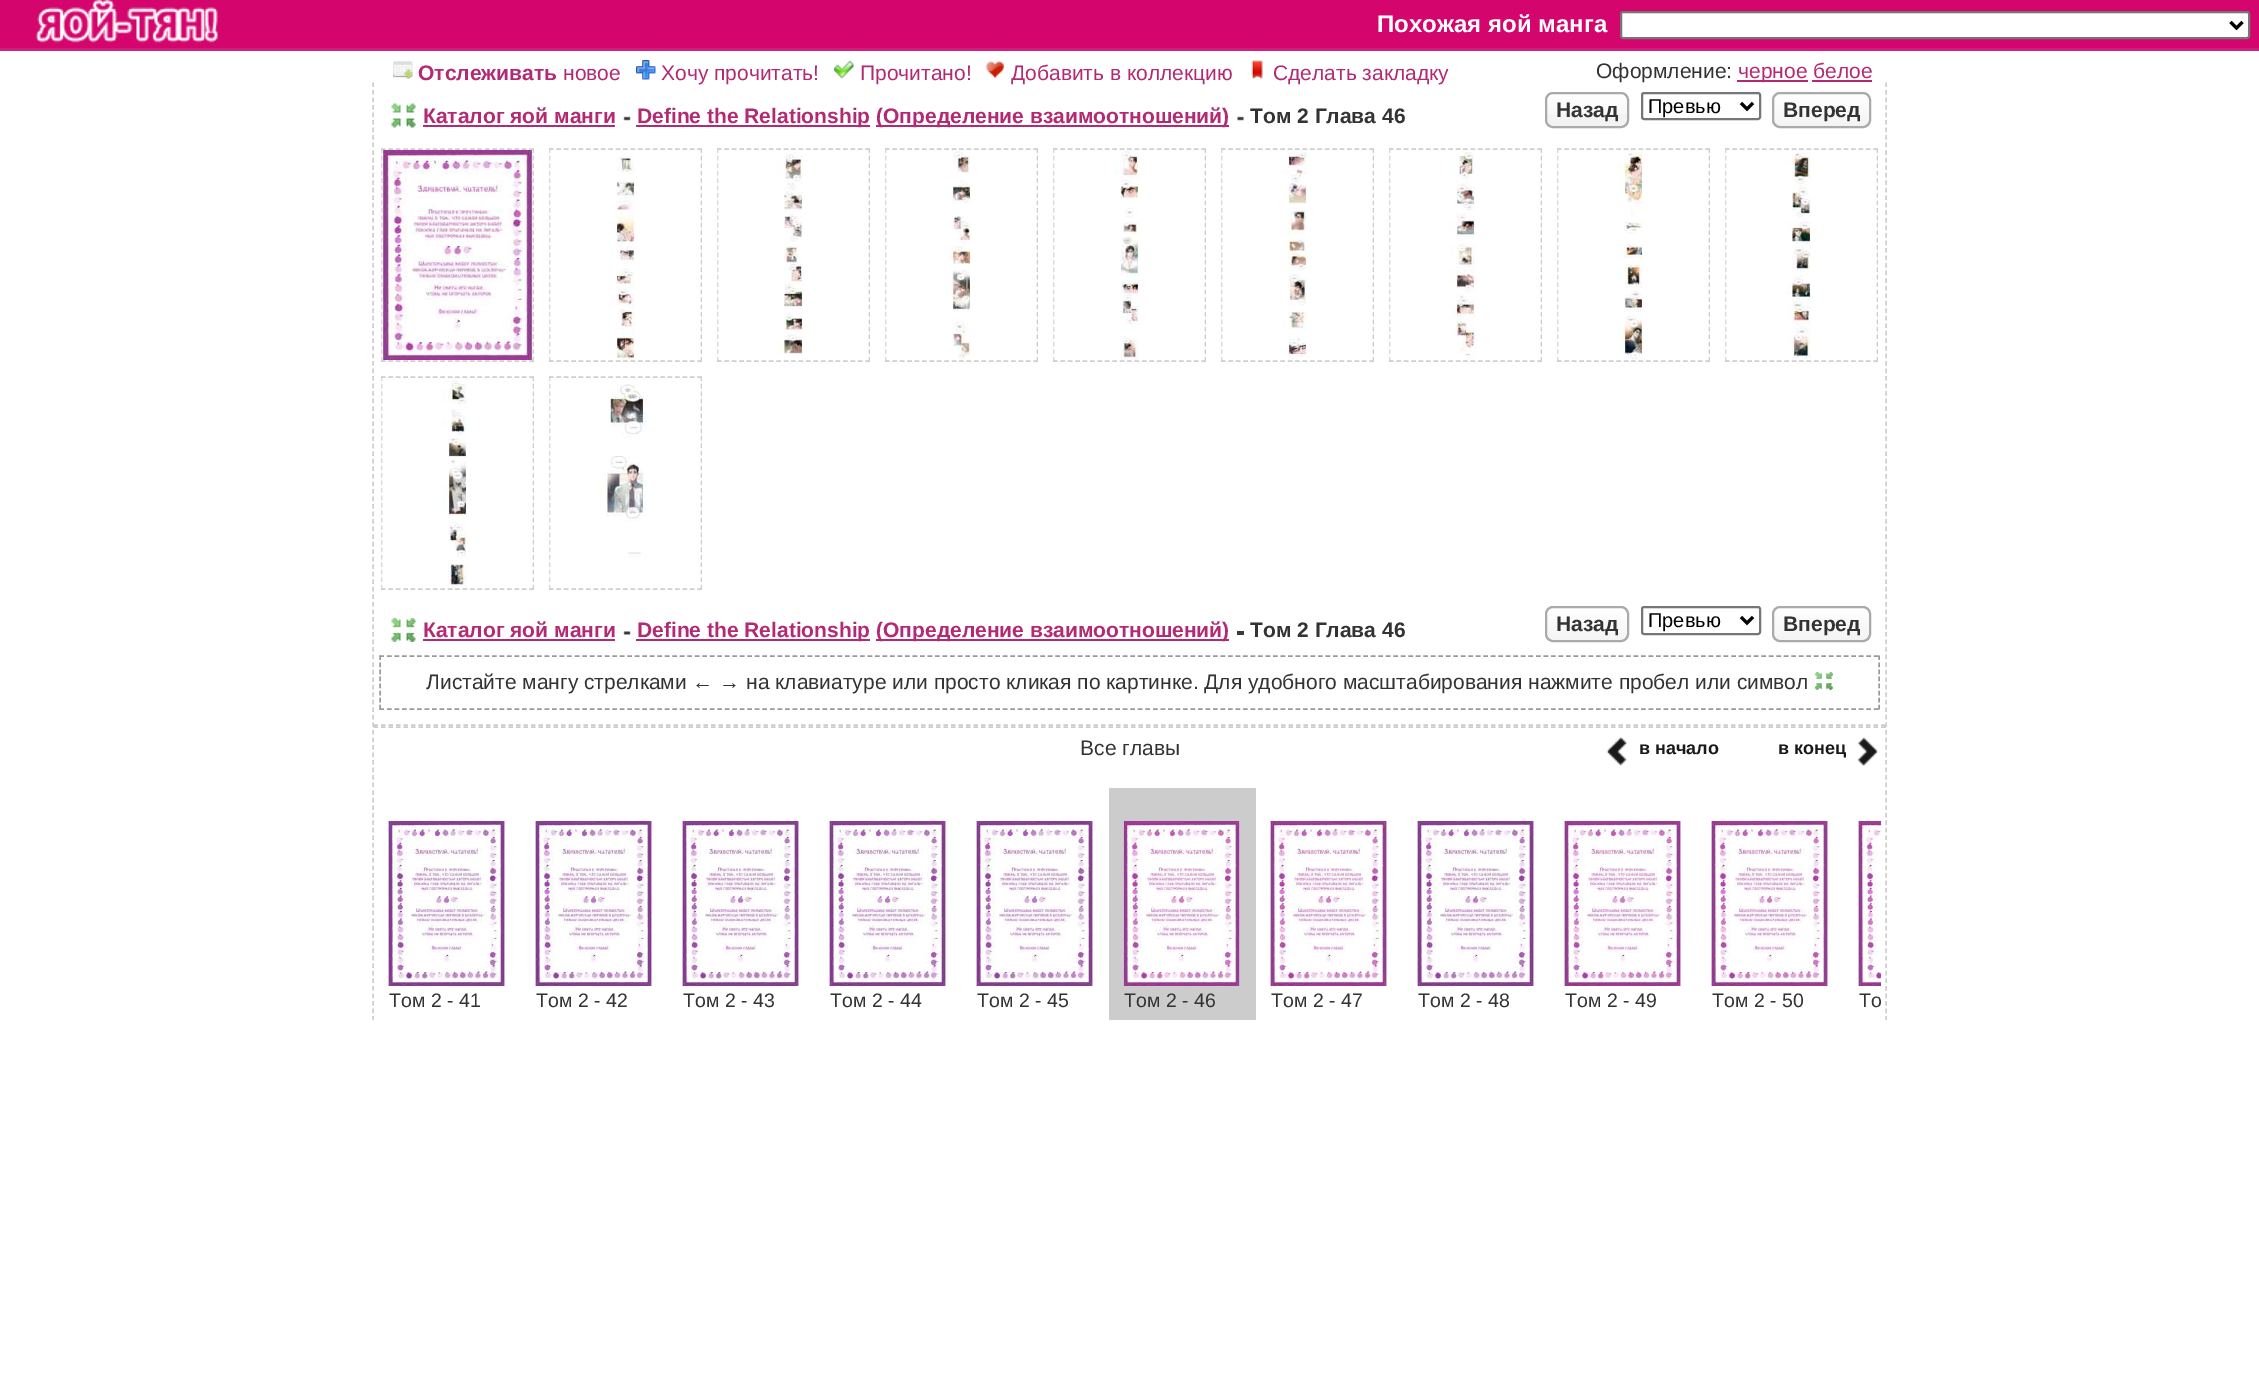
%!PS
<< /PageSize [2259 1398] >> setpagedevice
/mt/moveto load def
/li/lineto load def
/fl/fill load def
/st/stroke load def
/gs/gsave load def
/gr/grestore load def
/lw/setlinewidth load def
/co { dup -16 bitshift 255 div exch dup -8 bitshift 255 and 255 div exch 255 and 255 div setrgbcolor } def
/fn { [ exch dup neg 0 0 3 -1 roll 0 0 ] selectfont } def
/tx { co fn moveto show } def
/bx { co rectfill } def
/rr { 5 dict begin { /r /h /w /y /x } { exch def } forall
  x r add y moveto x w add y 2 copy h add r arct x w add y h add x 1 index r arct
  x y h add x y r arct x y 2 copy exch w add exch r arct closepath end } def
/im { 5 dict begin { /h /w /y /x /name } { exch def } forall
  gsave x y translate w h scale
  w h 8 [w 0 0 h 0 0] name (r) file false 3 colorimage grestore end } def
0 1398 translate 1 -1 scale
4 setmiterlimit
0 0 2259 1398 16#FFFFFF bx
0 0 2259 48 16#D4066D bx
0 48 2259 3 16#CD1E7D bx
(media/1.raw) 35 0 183 43 im
16#FFFFFF co
1621 12 628 26 2 rr gs fl gr
16#767676 co
2 lw
st
16#000000 co
3 lw
2230.5 22 mt 2236.5 28 li 2242.5 22 li st
(media/2.raw) 393 61 20 18 im
(media/3.raw) 636 60 20 20 im
(media/4.raw) 834 61 20 18 im
(media/5.raw) 985 61 20 18 im
(media/6.raw) 1251 60 12 19 im
1737 80 71 2 16#B32973 bx
1812 80 60 2 16#B32973 bx
16#CFCFCF co
1.5 lw
[4.5 3.03] 0 setdash
1886 82.5 mt 1886 1020 li st
373 82.5 mt 373 1020 li st
(media/7.raw) 391 103 25 25 im
423 125 192 2 16#B32973 bx
(media/8.raw) 623 116 8 5 im
636 125 234 2 16#B32973 bx
876 125 353 2 16#B32973 bx
(media/9.raw) 1237 116 7 5 im
16#F3F3F3 co
1545 92 84 36 8 rr fl
(media/10.raw) 1545 92 84 22 im
16#AAAAAA co
2 lw
[] 0 setdash
1546 93 82 34 7 rr st
16#767676 co
1642 93 118 26 2 rr st
16#000000 co
3 lw
1741 103 mt 1747 109 li 1753 103 li st
16#F3F3F3 co
1772 92 99 36 8 rr fl
(media/11.raw) 1772 92 98 32 im
16#AAAAAA co
2 lw
1773 93 97 34 7 rr st
16#CFCFCF co
1.5 lw
[4.5 2.92] 0 setdash
381 149 mt 534 149 li st
[4.5 2.94] 0 setdash
533 148.5 mt 533 361.5 li st
[4.5 2.92] 0 setdash
381 361 mt 534 361 li st
[4.5 2.94] 0 setdash
382 148.5 mt 382 361.5 li st
[4.5 2.92] 0 setdash
549 149 mt 702 149 li st
[4.5 2.94] 0 setdash
701 148.5 mt 701 361.5 li st
[4.5 2.92] 0 setdash
549 361 mt 702 361 li st
[4.5 2.94] 0 setdash
550 148.5 mt 550 361.5 li st
[4.5 2.92] 0 setdash
717 149 mt 870 149 li st
[4.5 2.94] 0 setdash
869 148.5 mt 869 361.5 li st
[4.5 2.92] 0 setdash
717 361 mt 870 361 li st
[4.5 2.94] 0 setdash
718 148.5 mt 718 361.5 li st
[4.5 2.92] 0 setdash
885 149 mt 1038 149 li st
[4.5 2.94] 0 setdash
1037 148.5 mt 1037 361.5 li st
[4.5 2.92] 0 setdash
885 361 mt 1038 361 li st
[4.5 2.94] 0 setdash
886 148.5 mt 886 361.5 li st
[4.5 2.92] 0 setdash
1053 149 mt 1206 149 li st
[4.5 2.94] 0 setdash
1205 148.5 mt 1205 361.5 li st
[4.5 2.92] 0 setdash
1053 361 mt 1206 361 li st
[4.5 2.94] 0 setdash
1054 148.5 mt 1054 361.5 li st
[4.5 2.92] 0 setdash
1221 149 mt 1374 149 li st
[4.5 2.94] 0 setdash
1373 148.5 mt 1373 361.5 li st
[4.5 2.92] 0 setdash
1221 361 mt 1374 361 li st
[4.5 2.94] 0 setdash
1222 148.5 mt 1222 361.5 li st
[4.5 2.92] 0 setdash
1389 149 mt 1542 149 li st
[4.5 2.94] 0 setdash
1541 148.5 mt 1541 361.5 li st
[4.5 2.92] 0 setdash
1389 361 mt 1542 361 li st
[4.5 2.94] 0 setdash
1390 148.5 mt 1390 361.5 li st
[4.5 2.92] 0 setdash
1557 149 mt 1710 149 li st
[4.5 2.94] 0 setdash
1709 148.5 mt 1709 361.5 li st
[4.5 2.92] 0 setdash
1557 361 mt 1710 361 li st
[4.5 2.94] 0 setdash
1558 148.5 mt 1558 361.5 li st
[4.5 2.92] 0 setdash
1725 149 mt 1878 149 li st
(media/12.raw) 382 150 151 210 im
(media/13.raw) 550 150 151 210 im
(media/14.raw) 718 150 151 210 im
(media/15.raw) 886 150 151 210 im
(media/16.raw) 1054 150 151 210 im
(media/17.raw) 1222 150 151 210 im
(media/18.raw) 1390 150 151 210 im
(media/19.raw) 1558 150 151 210 im
[4.5 2.94] 0 setdash
1877 148.5 mt 1877 361.5 li st
[4.5 2.92] 0 setdash
1725 361 mt 1878 361 li st
[4.5 2.94] 0 setdash
1726 148.5 mt 1726 361.5 li st
(media/20.raw) 1726 150 151 210 im
[4.5 2.92] 0 setdash
381 377 mt 534 377 li st
[4.5 2.94] 0 setdash
533 376.5 mt 533 589.5 li st
[4.5 2.92] 0 setdash
381 589 mt 534 589 li st
[4.5 2.94] 0 setdash
382 376.5 mt 382 589.5 li st
[4.5 2.92] 0 setdash
549 377 mt 702 377 li st
(media/21.raw) 382 378 151 210 im
[4.5 2.94] 0 setdash
701 376.5 mt 701 589.5 li st
[4.5 2.92] 0 setdash
549 589 mt 702 589 li st
[4.5 2.94] 0 setdash
550 376.5 mt 550 589.5 li st
(media/22.raw) 550 378 151 210 im
(media/23.raw) 391 618 25 24 im
423 639 192 2 16#B32973 bx
(media/24.raw) 623 631 8 4 im
636 639 234 2 16#B32973 bx
1237 631 7 4 16#3B3A36 bx
876 639 353 2 16#B32973 bx
(media/25.raw) 1545 606 84 36 im
16#AAAAAA co
2 lw
[] 0 setdash
1546 607 82 34 7 rr st
16#767676 co
1642 607 118 27 2 rr st
16#000000 co
3 lw
1741 617 mt 1747 623 li 1753 617 li st
(media/26.raw) 1772 606 98 36 im
16#AAAAAA co
2 lw
1773 607 97 34 7 rr st
16#999999 co
1.5 lw
[4.5 3.01] 0 setdash
379.5 656 mt 1879.5 656 li st
[4.5 2.56] 0 setdash
1879 655.5 mt 1879 709.5 li st
[4.5 3.01] 0 setdash
379.5 709 mt 1879.5 709 li st
[4.5 2.56] 0 setdash
380 655.5 mt 380 709.5 li st
(media/27.raw) 1815 672 18 18 im
16#CCCCCC co
[4.5 3] 0 setdash
373.5 725 mt 1885.5 725 li st
1884 725 2 3 16#CCCCCC bx
373.5 727 mt 1885.5 727 li st
374 725 2 3 16#CCCCCC bx
(media/28.raw) 1606 737 21 29 im
(media/29.raw) 1857 737 21 29 im
(media/30.raw) 388 821 117 165 im
(media/31.raw) 535 821 117 165 im
(media/30.raw) 682 821 117 165 im
(media/31.raw) 829 821 117 165 im
(media/30.raw) 976 821 117 165 im
1109 788 147 232 16#CCCCCC bx
(media/32.raw) 1123 821 117 165 im
(media/33.raw) 1270 821 117 165 im
(media/30.raw) 1417 821 117 165 im
(media/32.raw) 1564 821 117 165 im
(media/33.raw) 1711 821 117 165 im
(media/34.raw) 1858 821 23 165 im
(Похожая яой манга) 1377 32 /LiberationSans-Bold 24 16#FFFFFF tx
(Отслеживать) 418 80 /LiberationSans-Bold 21 16#B32973 tx
(новое) 563 80 /LiberationSans-Regular 21 16#B32973 tx
(Хочу прочитать!) 661 80 /LiberationSans-Regular 21 16#B32973 tx
(Прочитано!) 860 80 /LiberationSans-Regular 21 16#B32973 tx
(Добавить в коллекцию) 1011 80 /LiberationSans-Regular 21 16#B32973 tx
(Сделать закладку) 1273 80 /LiberationSans-Regular 21 16#B32973 tx
(Оформление:) 1596 78 /LiberationSans-Regular 21 16#333333 tx
(черное белое) 1738 78 /LiberationSans-Regular 21 16#B32973 tx
(Каталог яой манги) 423 123 /LiberationSans-Bold 21 16#B32973 tx
(Define the Relationship) 637 123 /LiberationSans-Bold 21 16#B32973 tx
(\(Определение взаимоотношений\)) 876 123 /LiberationSans-Bold 21 16#B32973 tx
(Том 2 Глава 46) 1250 123 /LiberationSans-Bold 21 16#333333 tx
(Назад) 1556 117 /LiberationSans-Bold 21 16#333333 tx
(Превью) 1648 113 /LiberationSans-Regular 20 16#000000 tx
(Вперед) 1783 117 /LiberationSans-Bold 21 16#333333 tx
(Каталог яой манги) 423 637 /LiberationSans-Bold 21 16#B32973 tx
(Define the Relationship) 637 637 /LiberationSans-Bold 21 16#B32973 tx
(\(Определение взаимоотношений\)) 876 637 /LiberationSans-Bold 21 16#B32973 tx
(Том 2 Глава 46) 1250 637 /LiberationSans-Bold 21 16#333333 tx
(Назад) 1556 631 /LiberationSans-Bold 21 16#333333 tx
(Превью) 1648 627 /LiberationSans-Regular 20 16#000000 tx
(Вперед) 1783 631 /LiberationSans-Bold 21 16#333333 tx
(Листайте мангу стрелками ← → на клавиатуре или просто кликая по картинке. Для удобного масштабирования нажмите пробел или символ) 426 689 /LiberationSans-Regular 21 16#333333 tx
(Все главы) 1080 755 /LiberationSans-Regular 21 16#333333 tx
(в начало) 1639 754 /LiberationSans-Bold 18 16#191919 tx
(в конец) 1778 754 /LiberationSans-Bold 18 16#191919 tx
(Том 2 - 41) 389 1007 /LiberationSans-Regular 19.5 16#333333 tx
(Том 2 - 42) 536 1007 /LiberationSans-Regular 19.5 16#333333 tx
(Том 2 - 43) 683 1007 /LiberationSans-Regular 19.5 16#333333 tx
(Том 2 - 44) 830 1007 /LiberationSans-Regular 19.5 16#333333 tx
(Том 2 - 45) 977 1007 /LiberationSans-Regular 19.5 16#333333 tx
(Том 2 - 46) 1124 1007 /LiberationSans-Regular 19.5 16#333333 tx
(Том 2 - 47) 1271 1007 /LiberationSans-Regular 19.5 16#333333 tx
(Том 2 - 48) 1418 1007 /LiberationSans-Regular 19.5 16#333333 tx
(Том 2 - 49) 1565 1007 /LiberationSans-Regular 19.5 16#333333 tx
(Том 2 - 50) 1712 1007 /LiberationSans-Regular 19.5 16#333333 tx
(То) 1859 1007 /LiberationSans-Regular 19.5 16#333333 tx
showpage
